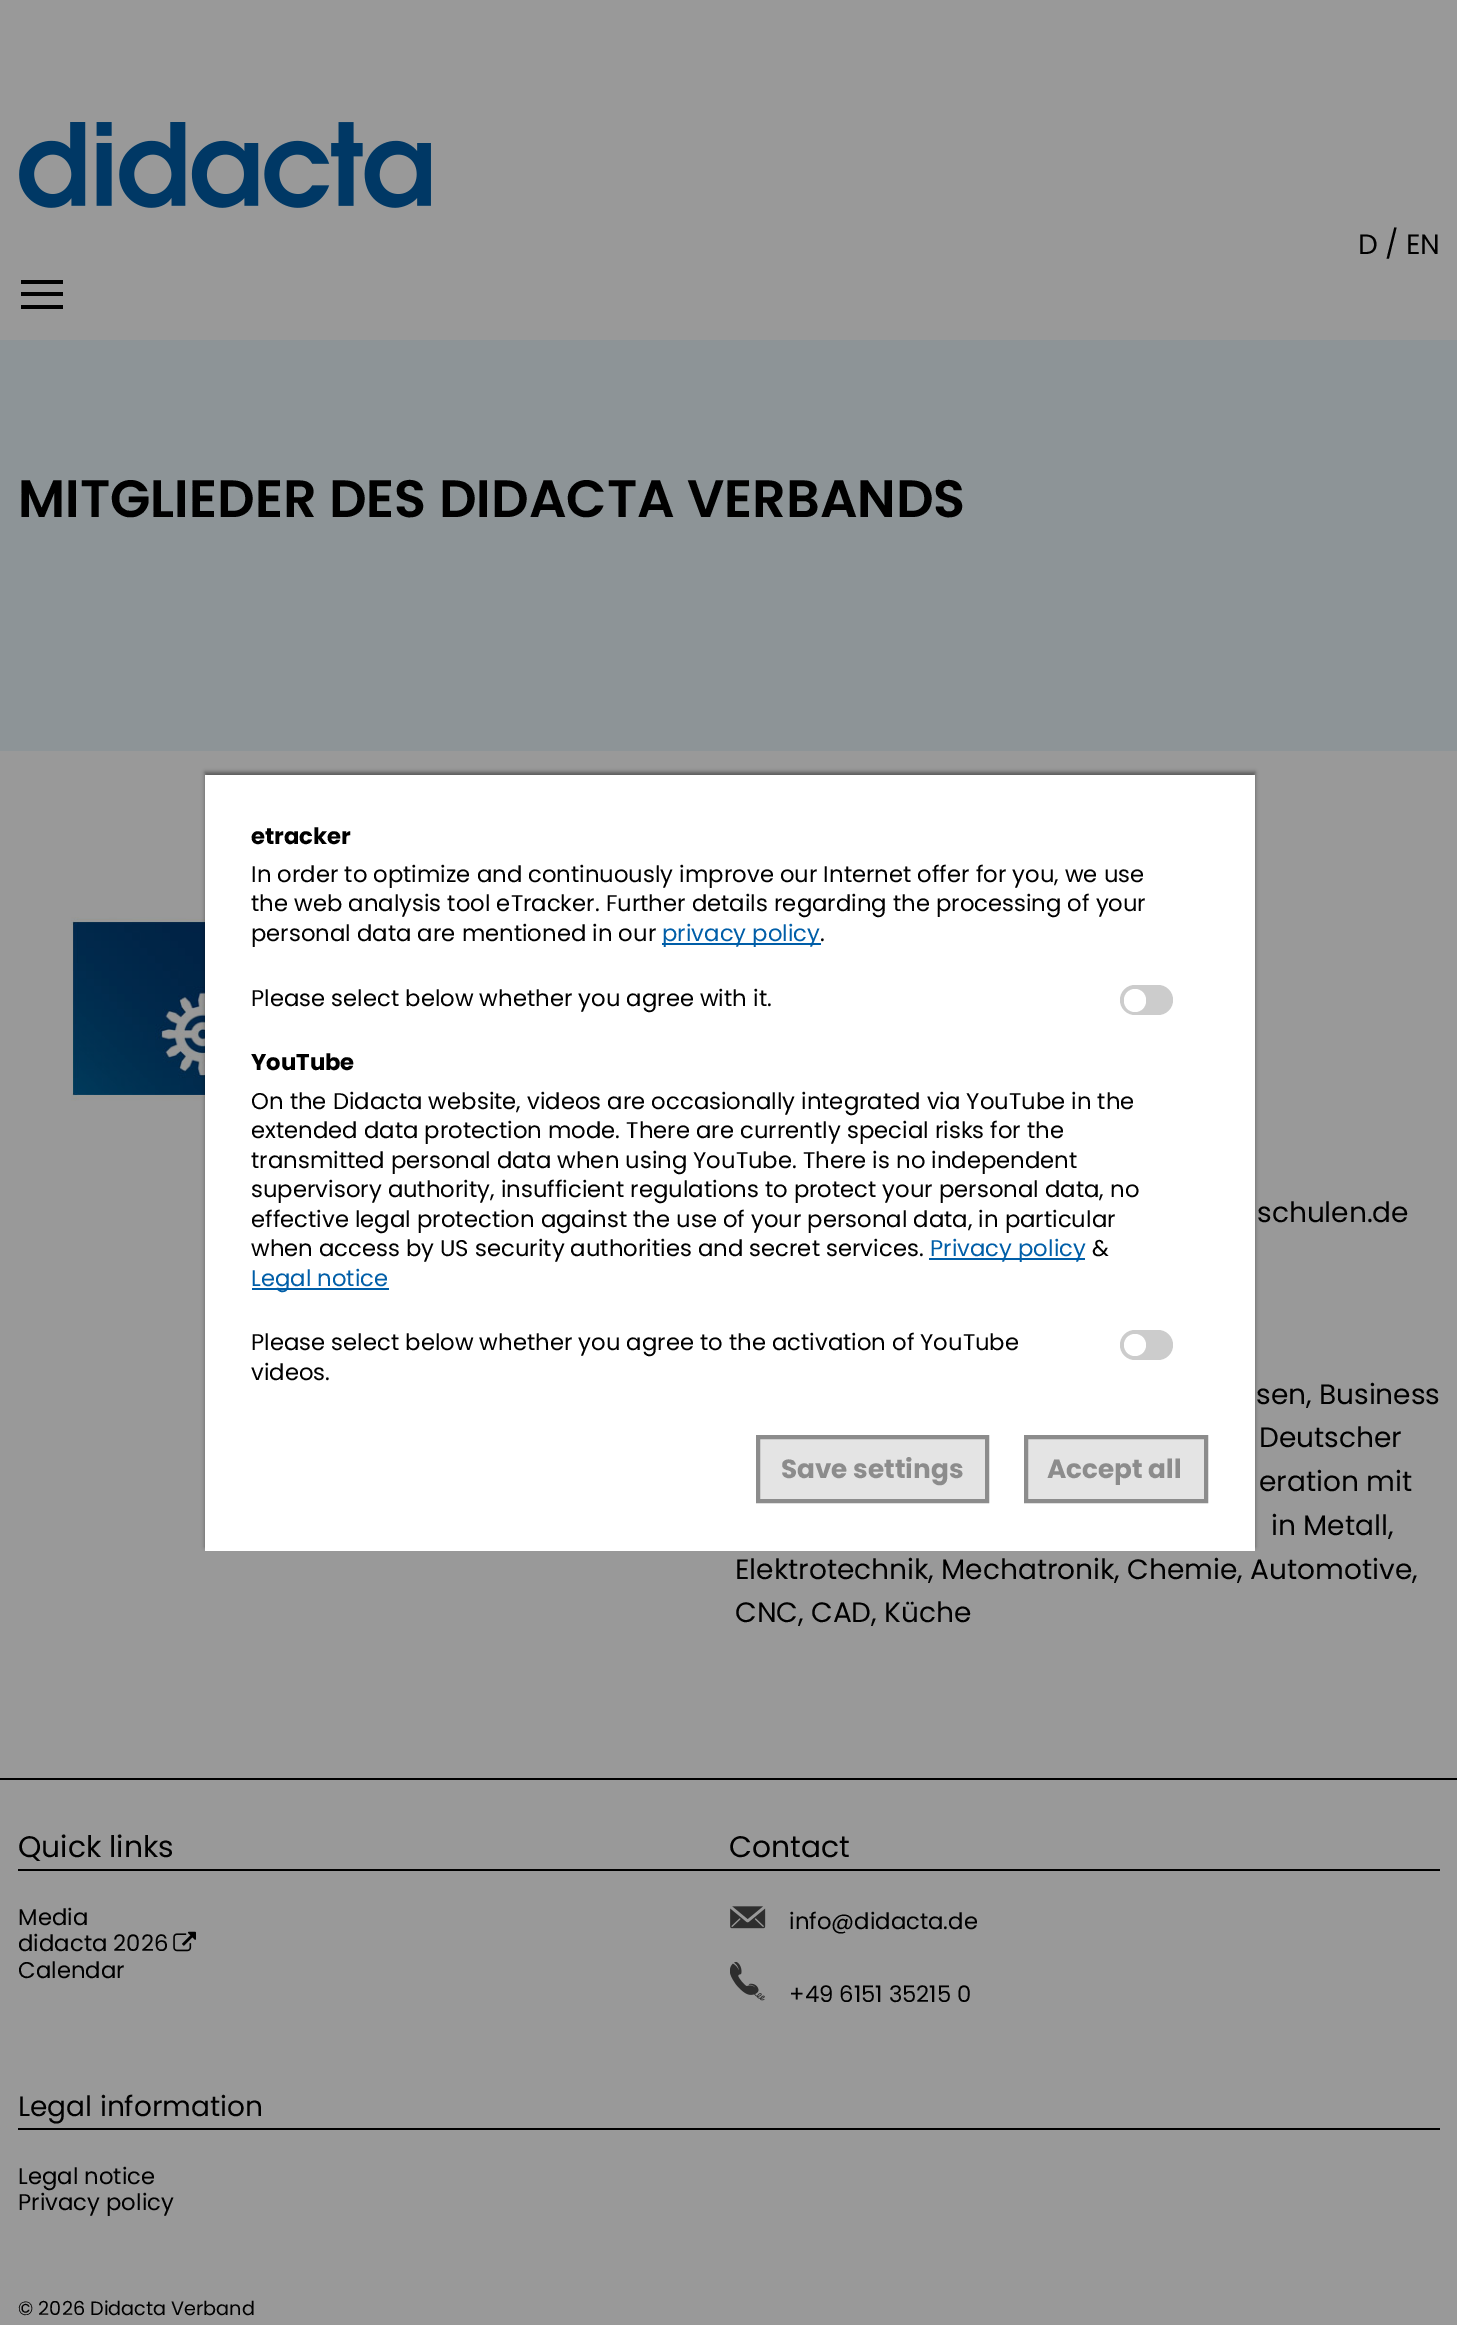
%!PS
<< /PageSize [1457 2325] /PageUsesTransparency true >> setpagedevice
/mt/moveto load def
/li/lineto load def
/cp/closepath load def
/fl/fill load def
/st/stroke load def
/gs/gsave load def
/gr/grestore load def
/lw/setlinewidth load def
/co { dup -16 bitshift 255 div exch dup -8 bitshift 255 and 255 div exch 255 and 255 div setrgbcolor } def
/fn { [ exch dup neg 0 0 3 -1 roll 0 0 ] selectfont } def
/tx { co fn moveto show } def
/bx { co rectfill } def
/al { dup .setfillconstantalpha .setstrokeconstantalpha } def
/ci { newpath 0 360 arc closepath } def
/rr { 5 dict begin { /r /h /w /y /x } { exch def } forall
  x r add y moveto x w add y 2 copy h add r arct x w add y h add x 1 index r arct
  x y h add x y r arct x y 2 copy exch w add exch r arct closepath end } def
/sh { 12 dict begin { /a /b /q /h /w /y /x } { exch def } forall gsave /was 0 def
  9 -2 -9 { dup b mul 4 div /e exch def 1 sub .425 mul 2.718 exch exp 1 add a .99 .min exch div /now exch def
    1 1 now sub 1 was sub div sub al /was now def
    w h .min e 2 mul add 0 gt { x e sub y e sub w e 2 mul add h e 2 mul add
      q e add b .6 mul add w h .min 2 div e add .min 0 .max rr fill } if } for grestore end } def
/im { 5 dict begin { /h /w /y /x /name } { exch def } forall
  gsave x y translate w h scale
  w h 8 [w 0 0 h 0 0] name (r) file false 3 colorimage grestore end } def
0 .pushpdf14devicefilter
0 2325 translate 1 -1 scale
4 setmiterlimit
0 0 1457 2325 16#999999 bx
(media/1.raw) 19 122 412 86 im
21 292 42 4 16#000000 bx
21 280 42 4 16#000000 bx
21 305 42 4 16#000000 bx
0 340 1457 411 16#8D9497 bx
(media/2.raw) 71 917 134 184 im
16#000000 co
205 772 1050 775 0 2 .4 sh
205 775 1050 776 16#FFFFFF bx
662 943 159 2 16#005EA8 bx
16#CCCCCC co
1120 985 53 30 15 rr fl
16#FFFFFF co
1124 989 22 23 11 rr fl
929 1258 156 2 16#005EA8 bx
252 1288 137 2 16#005EA8 bx
16#CCCCCC co
1120 1330 53 30 15 rr fl
16#FFFFFF co
1135 1345 11 ci fl
16#E4E4E4 co
758 1437 mt 987 1437 li 987 1501 li 758 1501 li cp gs fl gr
16#8C8C8C co
4 lw
st
16#E4E4E4 co
1026 1437 mt 1206 1437 li 1206 1501 li 1026 1501 li cp gs fl gr
16#8C8C8C co
st
0 1778 1457 2 16#000000 bx
18 1869 1422 2 16#000000 bx
(media/3.raw) 173 1931 23 21 im
(media/4.raw) 730 1906 36 23 im
(media/5.raw) 730 1962 35 39 im
18 2128 1422 2 16#000000 bx
(D / EN) 1358 254 /Poppins-Regular 28 16#000000 tx
(MITGLIEDER DES DIDACTA VERBANDS) 18 517 /Poppins-SemiBold 52.5 16#000000 tx
(schulen.de) 1257 1222 /Poppins-Regular 28 16#000000 tx
(sen, Business) 1256 1404 /Poppins-Regular 28 16#000000 tx
(Deutscher) 1259 1447 /Poppins-Regular 28 16#000000 tx
(eration mit) 1259 1491 /Poppins-Regular 28 16#000000 tx
(in Metall,) 1271 1535 /Poppins-Regular 28 16#000000 tx
(Elektrotechnik, Mechatronik, Chemie, Automotive,) 735 1579 /Poppins-Regular 28 16#000000 tx
(CNC, CAD, Küche) 735 1622 /Poppins-Regular 28 16#000000 tx
(etracker) 251 844 /Poppins-Bold 22.75 16#000000 tx
(In order to optimize and continuously improve our Internet offer for you, we use) 251 882 /Poppins-Regular 22.75 16#000000 tx
(the web analysis tool eTracker. Further details regarding the processing of your) 251 911 /Poppins-Regular 22.75 16#000000 tx
(personal data are mentioned in our) 251 941 /Poppins-Regular 22.75 16#000000 tx
(privacy policy) 662 941 /Poppins-Regular 22.75 16#005EA8 tx
(.) 820 941 /Poppins-Regular 22.75 16#000000 tx
(Please select below whether you agree with it.) 251 1006 /Poppins-Regular 22.75 16#000000 tx
(YouTube) 251 1070 /Poppins-Bold 22.75 16#000000 tx
(On the Didacta website, videos are occasionally integrated via YouTube in the) 251 1109 /Poppins-Regular 22.75 16#000000 tx
(extended data protection mode. There are currently special risks for the) 251 1138 /Poppins-Regular 22.75 16#000000 tx
(transmitted personal data when using YouTube. There is no independent) 251 1168 /Poppins-Regular 22.75 16#000000 tx
(supervisory authority, insufficient regulations to protect your personal data, no) 251 1197 /Poppins-Regular 22.75 16#000000 tx
(effective legal protection against the use of your personal data, in particular) 251 1227 /Poppins-Regular 22.75 16#000000 tx
(when access by US security authorities and secret services.) 251 1256 /Poppins-Regular 22.75 16#000000 tx
(Privacy policy) 930 1256 /Poppins-Regular 22.75 16#005EA8 tx
(&) 1092 1256 /Poppins-Regular 22.75 16#000000 tx
(Legal notice) 251 1286 /Poppins-Regular 22.75 16#005EA8 tx
(Please select below whether you agree to the activation of YouTube) 251 1350 /Poppins-Regular 22.75 16#000000 tx
(videos.) 251 1380 /Poppins-Regular 22.75 16#000000 tx
(Save settings) 781 1478 /Poppins-Bold 26.25 16#8C8C8C tx
(Accept all) 1047 1478 /Poppins-Bold 26.25 16#8C8C8C tx
(Quick links) 18 1857 /Poppins-Regular 29.75 16#000000 tx
(Media) 18 1925 /Poppins-Regular 22.75 16#000000 tx
(didacta 2026) 18 1951 /Poppins-Regular 22.75 16#000000 tx
(Calendar) 18 1978 /Poppins-Regular 22.75 16#000000 tx
(Contact) 729 1857 /Poppins-Regular 29.75 16#000000 tx
(info@didacta.de) 789 1929 /Poppins-Regular 22.75 16#000000 tx
(+49 6151 35215 0) 789 2002 /Poppins-Regular 22.75 16#000000 tx
(Legal information) 18 2116 /Poppins-Regular 28 16#000000 tx
(Legal notice) 18 2184 /Poppins-Regular 22.75 16#000000 tx
(Privacy policy) 18 2210 /Poppins-Regular 22.75 16#000000 tx
(© 2026 Didacta Verband) 18 2315 /Poppins-Regular 19.25 16#000000 tx
.poppdf14devicefilter showpage
